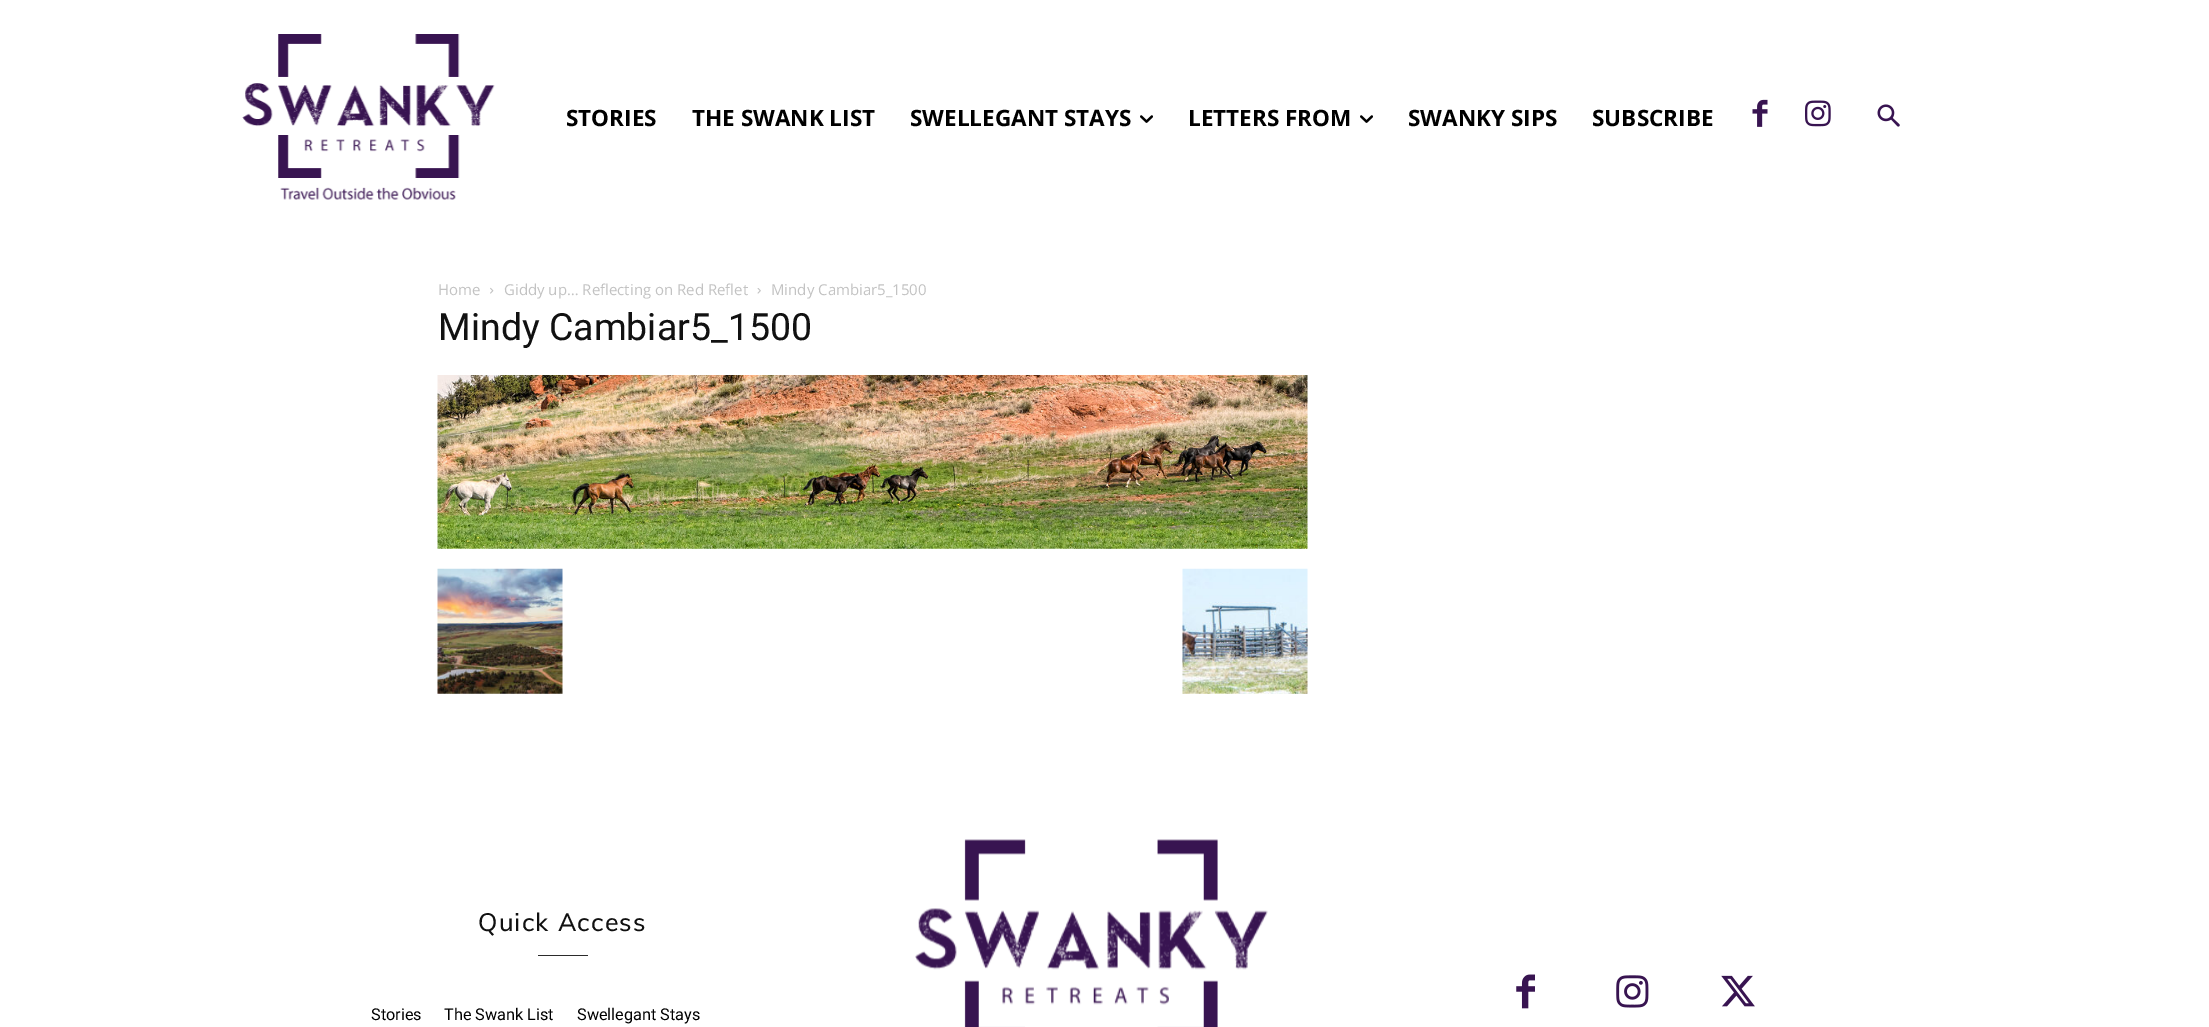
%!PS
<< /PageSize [2209 1027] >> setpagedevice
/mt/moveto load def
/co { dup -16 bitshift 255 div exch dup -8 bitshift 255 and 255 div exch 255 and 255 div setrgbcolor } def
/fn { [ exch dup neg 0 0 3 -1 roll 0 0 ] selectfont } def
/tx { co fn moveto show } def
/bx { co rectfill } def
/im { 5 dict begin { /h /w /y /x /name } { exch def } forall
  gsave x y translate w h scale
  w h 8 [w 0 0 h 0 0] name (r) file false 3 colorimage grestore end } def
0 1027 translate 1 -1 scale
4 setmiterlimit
0 0 2209 1027 16#FFFFFF bx
(media/1.raw) 242 34 253 166 im
(media/2.raw) 1140 115 13 8 im
(media/2.raw) 1360 115 13 8 im
(media/3.raw) 1752 99 16 28 im
(media/4.raw) 1805 100 26 27 im
(media/5.raw) 1877 104 23 23 im
(media/6.raw) 490 287 4 7 im
(media/7.raw) 757 288 4 6 im
(media/8.raw) 437 375 871 174 im
(media/9.raw) 437 568 126 126 im
(media/10.raw) 1182 568 126 126 im
538 955 50 1 16#2B2B2B bx
(media/11.raw) 915 839 353 188 im
(media/12.raw) 1516 974 19 35 im
(media/13.raw) 1616 975 33 33 im
(media/14.raw) 1721 975 34 32 im
(STORIES) 566 126 /OpenSans-Bold 22.5 16#000000 tx
(THE SWANK LIST) 692 126 /OpenSans-Bold 22.5 16#000000 tx
(SWELLEGANT STAYS) 910 126 /OpenSans-Bold 22.5 16#000000 tx
(LETTERS FROM) 1188 126 /OpenSans-Bold 22.5 16#000000 tx
(SWANKY SIPS) 1408 126 /OpenSans-Bold 22.5 16#000000 tx
(SUBSCRIBE) 1592 126 /OpenSans-Bold 22.5 16#000000 tx
(Home) 438 295 /OpenSans-Regular 15 16#C3C3C3 tx
(Giddy up… Reflecting on Red Reflet) 504 295 /OpenSans-Regular 15 16#C3C3C3 tx
(Mindy Cambiar5_1500) 771 295 /OpenSans-Regular 15 16#C3C3C3 tx
(Mindy Cambiar5_1500) 438 340 /Roboto-Regular 37.5 16#111111 tx
/Muli-Medium 25 fn
478 931 mt 1.25 0 (Quick Access) ashow
(Stories) 371 1020 /Roboto-Regular 16.25 16#000000 tx
(The Swank List) 444 1020 /Roboto-Regular 16.25 16#000000 tx
(Swellegant Stays) 577 1020 /Roboto-Regular 16.25 16#000000 tx
showpage
